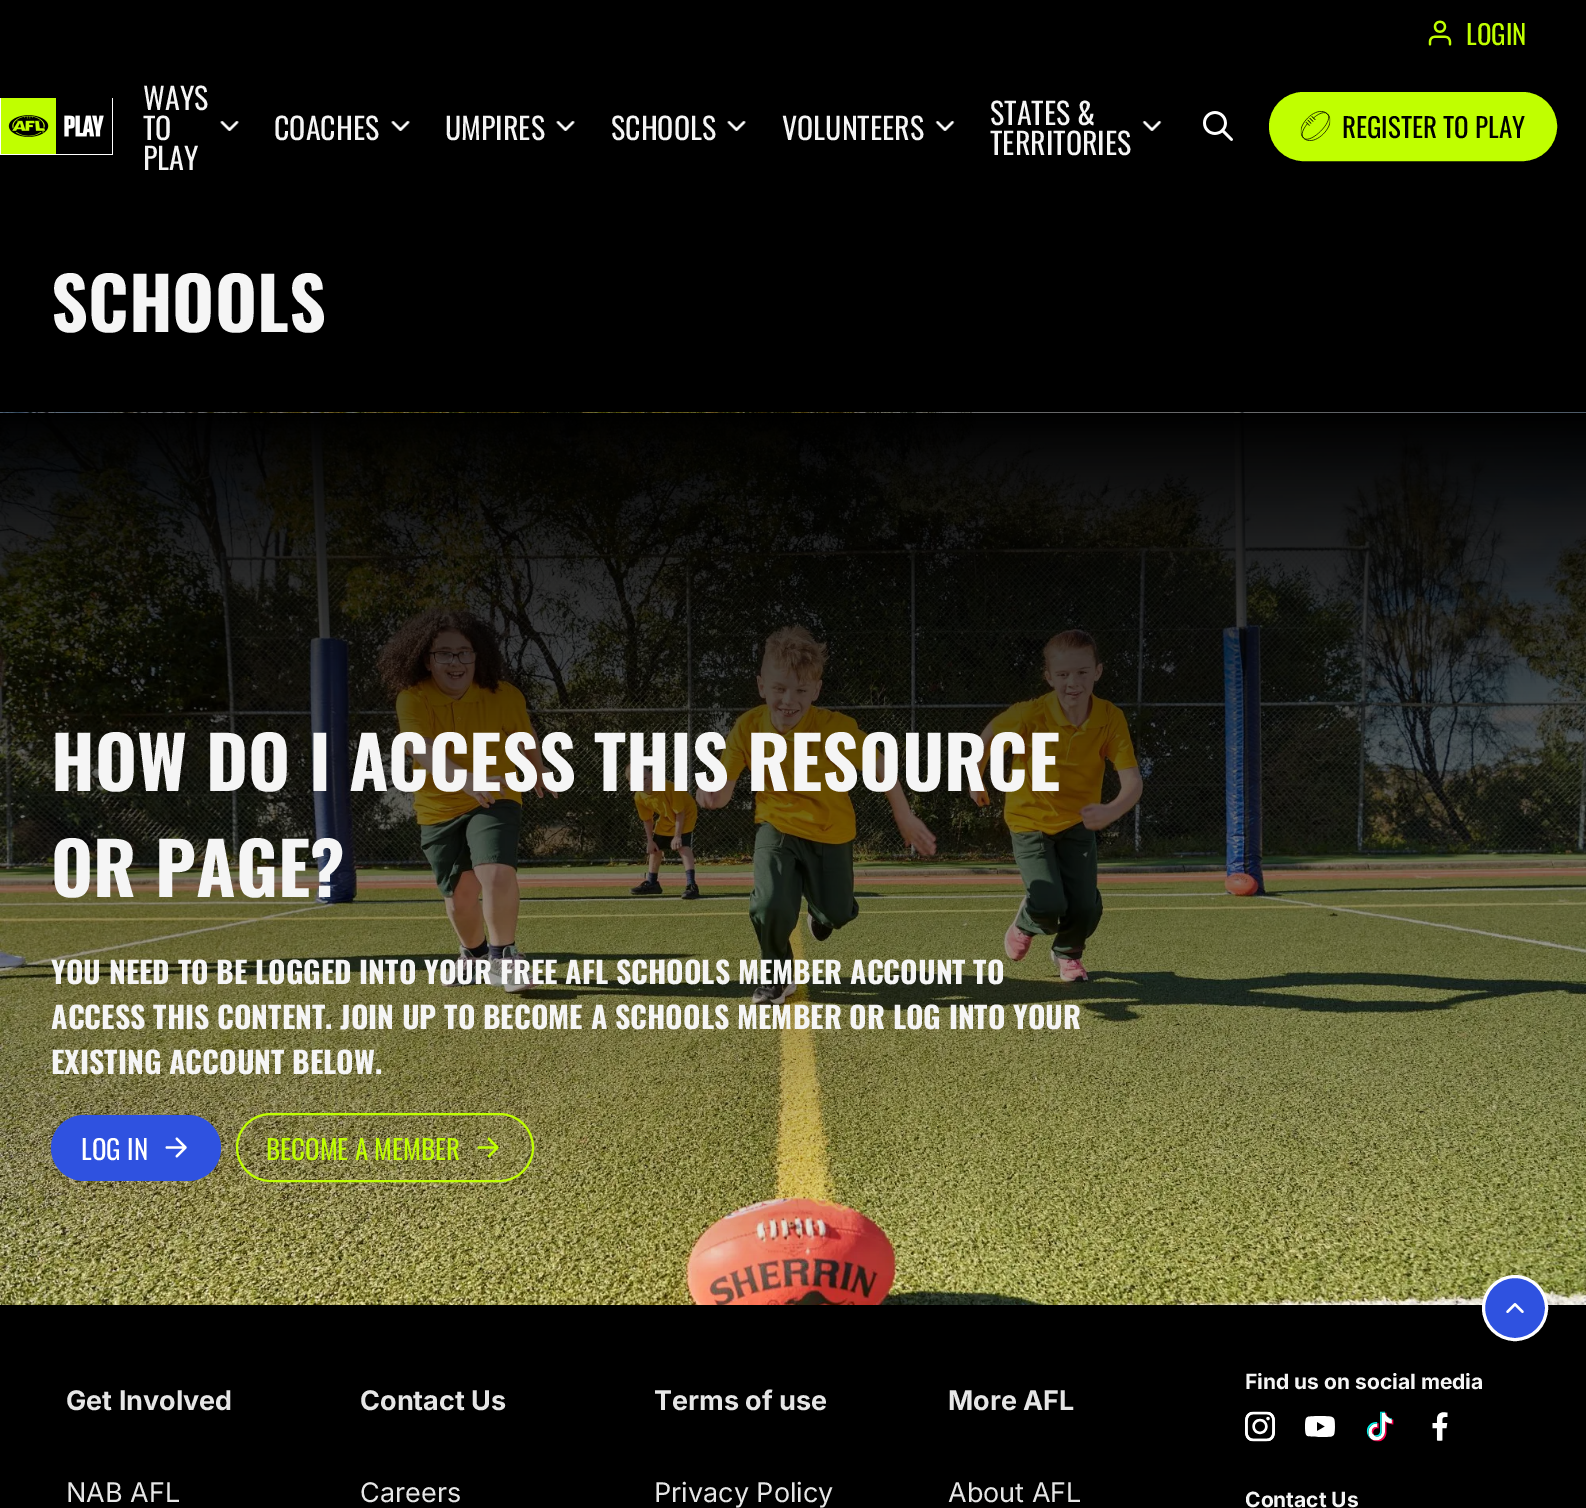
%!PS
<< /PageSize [1586 1508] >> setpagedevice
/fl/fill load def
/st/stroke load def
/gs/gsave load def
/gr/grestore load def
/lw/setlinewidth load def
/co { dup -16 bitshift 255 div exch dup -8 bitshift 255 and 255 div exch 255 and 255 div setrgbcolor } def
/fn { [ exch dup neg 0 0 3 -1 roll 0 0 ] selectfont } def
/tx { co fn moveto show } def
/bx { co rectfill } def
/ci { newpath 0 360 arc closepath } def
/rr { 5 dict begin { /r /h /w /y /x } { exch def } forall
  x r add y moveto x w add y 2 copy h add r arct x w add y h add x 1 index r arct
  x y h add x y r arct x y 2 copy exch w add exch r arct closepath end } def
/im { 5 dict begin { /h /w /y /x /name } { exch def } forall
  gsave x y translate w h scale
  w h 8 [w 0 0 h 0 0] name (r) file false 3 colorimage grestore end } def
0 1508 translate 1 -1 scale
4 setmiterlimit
0 0 1586 1508 16#000000 bx
(media/1.raw) 1428 20 24 26 im
(media/2.raw) 0 98 113 57 im
(media/3.raw) 220 121 19 10 im
(media/3.raw) 391 121 19 10 im
(media/3.raw) 556 121 19 10 im
(media/3.raw) 727 121 19 10 im
(media/4.raw) 935 121 20 10 im
(media/4.raw) 1142 121 20 10 im
(media/5.raw) 1203 111 30 30 im
16#C0FF00 co
1270 93 286 67 33.5 rr gs fl gr
2 lw
st
(media/6.raw) 1300 111 31 30 im
(media/7.raw) 0 412 1586 893 im
16#2F52E0 co
51 1115 170 66 33 rr fl
(media/8.raw) 165 1137 22 21 im
16#C0FF00 co
237 1114 296 67 33.5 rr st
(media/9.raw) 477 1137 22 21 im
16#2F52E0 co
1515 1308 31.5 ci gs fl gr
16#FFFFFF co
3 lw
st
(media/10.raw) 1506 1303 18 10 im
(media/11.raw) 1245 1411 30 31 im
(media/12.raw) 1305 1416 30 21 im
(media/13.raw) 1366 1411 28 31 im
(media/14.raw) 1432 1412 16 29 im
(LOGIN) 1466 45 /Oswald-Regular 27 16#C0FF00 tx
(WAYS) 143 110 /Oswald-Regular 30 16#F5F5F5 tx
(TO) 143 140 /Oswald-Regular 30 16#F5F5F5 tx
(PLAY) 143 170 /Oswald-Regular 30 16#F5F5F5 tx
(COACHES) 274 140 /Oswald-Regular 30 16#F5F5F5 tx
(UMPIRES) 445 140 /Oswald-Regular 30 16#F5F5F5 tx
(SCHOOLS) 611 140 /Oswald-Regular 30 16#F5F5F5 tx
(VOLUNTEERS) 782 140 /Oswald-Regular 30 16#F5F5F5 tx
(STATES &) 990 125 /Oswald-Regular 30 16#F5F5F5 tx
(TERRITORIES) 990 155 /Oswald-Regular 30 16#F5F5F5 tx
(REGISTER TO PLAY) 1342 138 /Oswald-Regular 27 16#000000 tx
(SCHOOLS) 51 332 /Oswald-Bold 72 16#F5F5F5 tx
(HOW DO I ACCESS THIS RESOURCE) 51 791 /Oswald-Bold 72 16#F5F5F5 tx
(OR PAGE?) 51 897 /Oswald-Bold 72 16#F5F5F5 tx
(YOU NEED TO BE LOGGED INTO YOUR FREE AFL SCHOOLS MEMBER ACCOUNT TO) 51 984 /Oswald-Bold 30 16#F5F5F5 tx
(ACCESS THIS CONTENT. JOIN UP TO BECOME A SCHOOLS MEMBER OR LOG INTO YOUR) 51 1029 /Oswald-Bold 30 16#F5F5F5 tx
(EXISTING ACCOUNT BELOW.) 51 1074 /Oswald-Bold 30 16#F5F5F5 tx
(LOG IN) 81 1160 /Oswald-Regular 27 16#FFFFFF tx
(BECOME A MEMBER) 266 1160 /Oswald-Regular 27 16#C0FF00 tx
(Get Involved) 66 1410 /Inter-Bold 27 16#E6E6E6 tx
(NAB AFL) 66 1502 /Inter-Regular 27 16#E6E6E6 tx
(Contact Us) 360 1410 /Inter-Bold 27 16#E6E6E6 tx
(Careers) 360 1502 /Inter-Regular 27 16#E6E6E6 tx
(Terms of use) 654 1410 /Inter-Bold 27 16#E6E6E6 tx
(Privacy Policy) 654 1502 /Inter-Regular 27 16#E6E6E6 tx
(More AFL) 948 1410 /Inter-Bold 27 16#E6E6E6 tx
(About AFL) 948 1502 /Inter-Regular 27 16#E6E6E6 tx
(Find us on social media) 1245 1389 /Inter-Bold 21 16#F5F5F5 tx
(Contact Us) 1245 1507 /Inter-Bold 21 16#F5F5F5 tx
showpage
